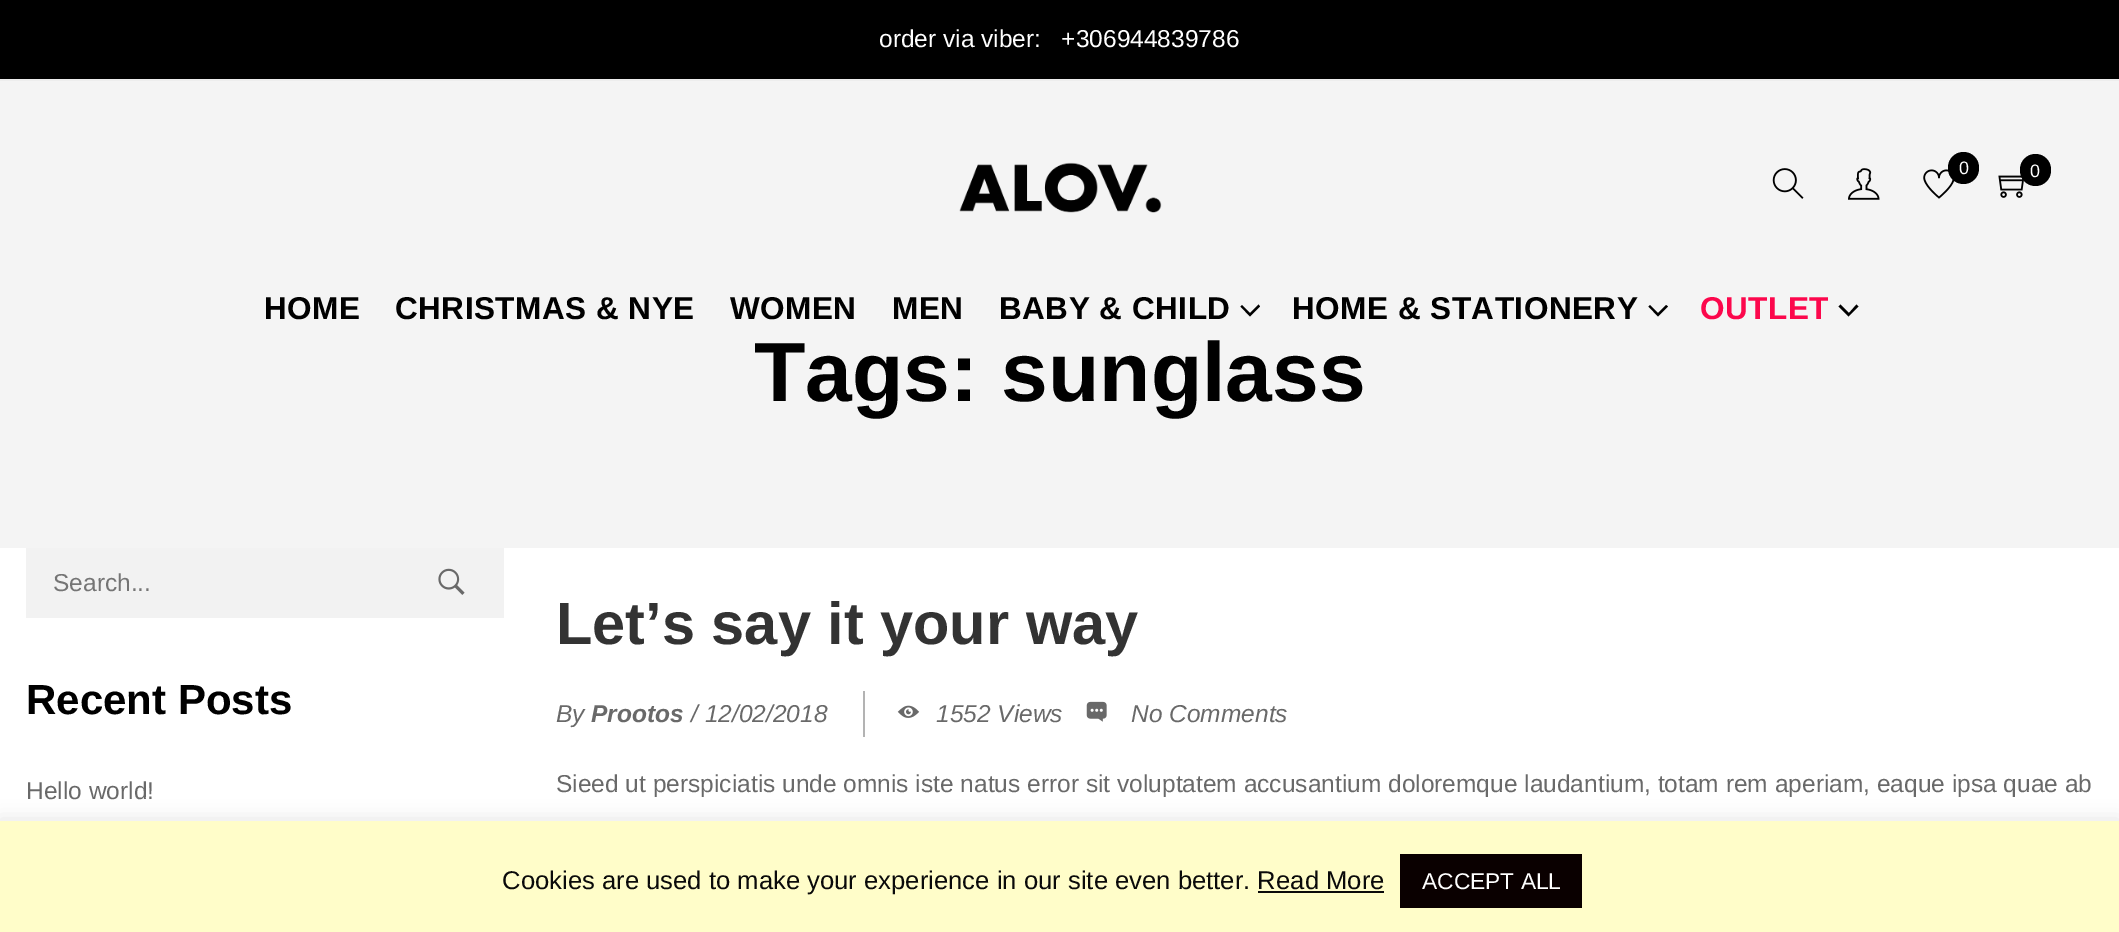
%!PS
<< /PageSize [2119 932] /PageUsesTransparency true >> setpagedevice
/mt/moveto load def
/li/lineto load def
/cp/closepath load def
/fl/fill load def
/co { dup -16 bitshift 255 div exch dup -8 bitshift 255 and 255 div exch 255 and 255 div setrgbcolor } def
/fn { [ exch dup neg 0 0 3 -1 roll 0 0 ] selectfont } def
/tx { co fn moveto show } def
/bx { co rectfill } def
/al { dup .setfillconstantalpha .setstrokeconstantalpha } def
/rr { 5 dict begin { /r /h /w /y /x } { exch def } forall
  x r add y moveto x w add y 2 copy h add r arct x w add y h add x 1 index r arct
  x y h add x y r arct x y 2 copy exch w add exch r arct closepath end } def
/sh { 12 dict begin { /a /b /q /h /w /y /x } { exch def } forall gsave /was 0 def
  9 -2 -9 { dup b mul 4 div /e exch def 1 sub .425 mul 2.718 exch exp 1 add a .99 .min exch div /now exch def
    1 1 now sub 1 was sub div sub al /was now def
    w h .min e 2 mul add 0 gt { x e sub y e sub w e 2 mul add h e 2 mul add
      q e add b .6 mul add w h .min 2 div e add .min 0 .max rr fill } if } for grestore end } def
/im { 5 dict begin { /h /w /y /x /name } { exch def } forall
  gsave x y translate w h scale
  w h 8 [w 0 0 h 0 0] name (r) file false 3 colorimage grestore end } def
0 .pushpdf14devicefilter
0 932 translate 1 -1 scale
4 setmiterlimit
0 0 2119 932 16#FFFFFF bx
0 79 2119 2 16#EDEDED bx
0 0 2119 79 16#000000 bx
0 81 2119 467 16#F4F4F4 bx
(media/1.raw) 959 162 203 51 im
(media/2.raw) 1772 168 32 31 im
(media/3.raw) 1848 168 32 32 im
(media/4.raw) 1923 169 32 30 im
16#000000 co
1948 152 31 32 15.5 rr fl
(media/5.raw) 1998 175 26 23 im
2020 154 31 32 15.5 rr fl
1240.5 306.5 mt 1250 316.5 li 1260 306.5 li 1258.5 304.5 li 1250 313 li 1242 305 li cp fl
1648.5 306.5 mt 1658 316.5 li 1668 306.5 li 1666 305 li 1658 313 li 1650 305 li cp fl
1838.5 306.5 mt 1848.5 316.5 li 1858.5 306.5 li 1856.5 304.5 li 1849 313 li 1840.5 304.5 li cp fl
26 548 478 70 16#F2F2F2 bx
(media/6.raw) 438 568 27 27 im
863 691 2 46 16#B3B3B3 bx
(media/7.raw) 897 705 23 13 im
(media/8.raw) 1086 701 21 21 im
16#ACABAB co
0 819 2119 112 0 9 .3 sh
0 821 2119 111 16#FFFDC9 bx
1400 854 182 54 16#0A0000 bx
1258 891 126 2 16#0A0A0A bx
(order via viber:   +306944839786) 879 47 /LiberationSans-Regular 24.5 16#FFFFFF tx
(0) 1959 174 /LiberationSans-Regular 18 16#FFFFFF tx
(0) 2030 177 /LiberationSans-Regular 18 16#FFFFFF tx
/LiberationSans-Bold 31.5 fn
16#000000 co
264 319 mt .5 0 (HOME) ashow
395 319 mt .5 0 (CHRISTMAS & NYE) ashow
730 319 mt .5 0 (WOMEN) ashow
892 319 mt .5 0 (MEN) ashow
999 319 mt .5 0 (BABY & CHILD) ashow
1292 319 mt .5 0 (HOME & STATIONERY) ashow
16#FC074C co
1700 319 mt .5 0 (OUTLET) ashow
(Tags: sunglass) 754 401 /LiberationSans-Bold 84 16#000000 tx
(Search...) 53 591 /LiberationSans-Regular 24.5 16#757575 tx
(Recent Posts) 26 714 /LiberationSans-Bold 42 16#000000 tx
(Hello world!) 26 799 /LiberationSans-Regular 24.5 16#696969 tx
(Let’s say it your way) 556 644 /LiberationSans-Bold 59.5 16#333333 tx
(By) 556 722 /LiberationSans-Italic 24.5 16#696969 tx
(Prootos) 591 722 /LiberationSans-BoldItalic 24.5 16#696969 tx
(/ 12/02/2018) 691 722 /LiberationSans-Italic 24.5 16#696969 tx
(1552 Views) 936 722 /LiberationSans-Italic 24.5 16#696969 tx
(No Comments) 1131 722 /LiberationSans-Italic 24.5 16#696969 tx
(Sieed ut perspiciatis unde omnis iste natus error sit voluptatem accusantium doloremque laudantium, totam rem aperiam, eaque ipsa quae ab) 556 792 /LiberationSans-Regular 24.5 16#696969 tx
(Cookies are used to make your experience in our site even better. Read More) 502 889 /LiberationSans-Regular 25.65 16#0A0A0A tx
(ACCEPT ALL) 1422 889 /LiberationSans-Regular 22.75 16#FFFFFF tx
.poppdf14devicefilter showpage
